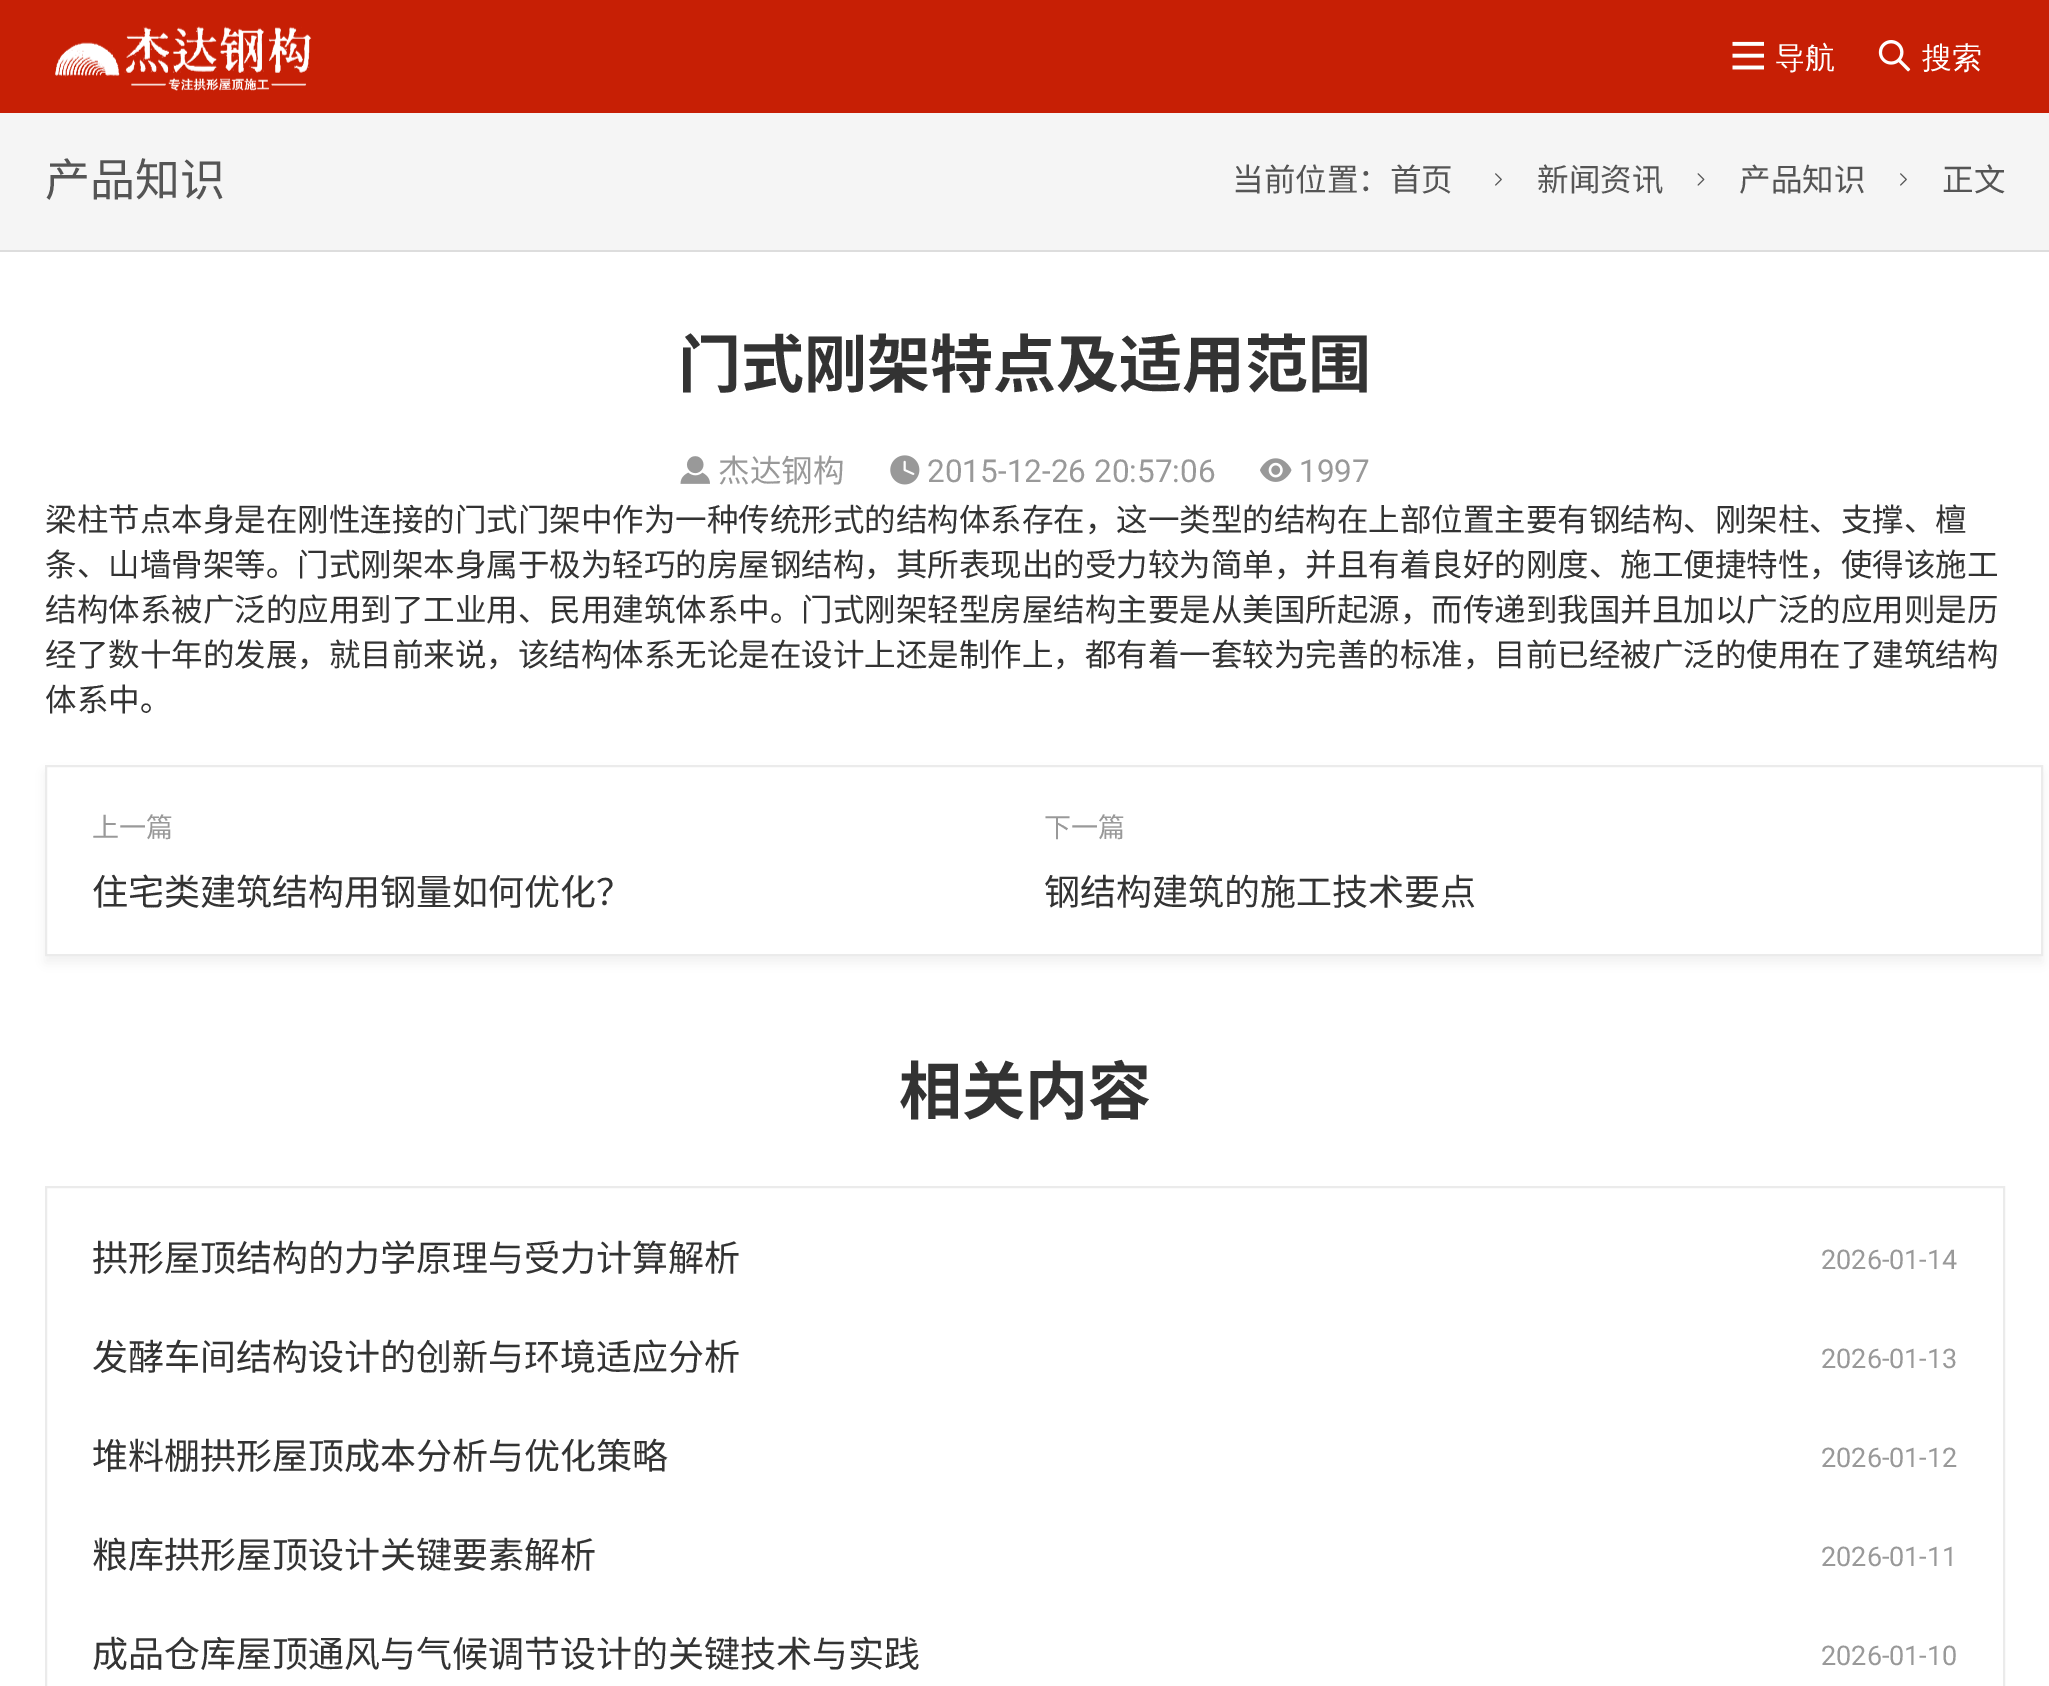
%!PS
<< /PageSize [2049 1686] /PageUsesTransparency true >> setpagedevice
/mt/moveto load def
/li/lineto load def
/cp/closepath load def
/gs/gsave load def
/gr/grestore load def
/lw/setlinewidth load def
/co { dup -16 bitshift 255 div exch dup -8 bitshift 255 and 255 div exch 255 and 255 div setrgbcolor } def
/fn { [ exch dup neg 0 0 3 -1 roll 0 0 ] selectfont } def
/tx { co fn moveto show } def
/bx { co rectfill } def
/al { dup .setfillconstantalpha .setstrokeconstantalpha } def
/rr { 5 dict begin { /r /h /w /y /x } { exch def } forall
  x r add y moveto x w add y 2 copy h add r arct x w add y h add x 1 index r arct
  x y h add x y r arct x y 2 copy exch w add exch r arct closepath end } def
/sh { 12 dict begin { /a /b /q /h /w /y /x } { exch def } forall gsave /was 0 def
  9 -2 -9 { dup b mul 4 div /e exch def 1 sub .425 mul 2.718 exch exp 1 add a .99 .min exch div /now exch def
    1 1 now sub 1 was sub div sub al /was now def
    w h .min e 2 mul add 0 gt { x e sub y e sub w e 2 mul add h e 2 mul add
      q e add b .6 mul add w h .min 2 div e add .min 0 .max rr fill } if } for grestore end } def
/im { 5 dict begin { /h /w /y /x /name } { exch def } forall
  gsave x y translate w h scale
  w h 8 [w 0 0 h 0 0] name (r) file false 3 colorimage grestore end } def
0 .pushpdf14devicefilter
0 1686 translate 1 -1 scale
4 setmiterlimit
0 0 2049 1686 16#FFFFFF bx
0 0 2049 113 16#C71F05 bx
(media/1.raw) 55 26 257 65 im
(media/2.raw) 1732 41 32 29 im
(media/3.raw) 1878 40 33 32 im
0 113 2049 137 16#F5F5F5 bx
0 250 2049 2 16#DDDDDD bx
(media/4.raw) 1495 173 7 13 im
(media/5.raw) 1697 173 8 13 im
(media/4.raw) 1900 173 7 13 im
(media/6.raw) 680 456 30 28 im
(media/7.raw) 890 455 30 30 im
(media/8.raw) 1260 458 32 24 im
gs
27 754 mt 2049 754 li 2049 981 li 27 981 li cp 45 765 mt 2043 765 li 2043 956 li 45 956 li cp eoclip newpath
16#000000 co
45 772 1998 191 0 5.5 .05 sh
gr
16#EBEBEB co
2 lw
46 766 1996 189 rectstroke
46 1187 1958 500 rectstroke
(导航) 1775 68 /WenQuanYiZenHei-Medium 30 16#FFFFFF tx
(搜索) 1922 68 /WenQuanYiZenHei-Medium 30 16#FFFFFF tx
(产品知识) 45 196 /NotoSansCJKSC-Regular 45 16#555555 tx
(当前位置：首页) 1232 191 /NotoSansCJKSC-Regular 31.5 16#555555 tx
(新闻资讯) 1537 191 /NotoSansCJKSC-Regular 31.5 16#555555 tx
(产品知识) 1739 191 /NotoSansCJKSC-Regular 31.5 16#555555 tx
(正文) 1942 191 /NotoSansCJKSC-Regular 31.5 16#555555 tx
(门式刚架特点及适用范围) 678 387 /NotoSansCJKSC-Bold 63 16#333333 tx
(杰达钢构) 718 482 /NotoSansCJKSC-Regular 31.5 16#999999 tx
(2015-12-26 20:57:06) 927 482 /Roboto-Regular 31.5 16#999999 tx
(1997) 1299 482 /Roboto-Regular 31.5 16#999999 tx
(梁柱节点本身是在刚性连接的门式门架中作为一种传统形式的结构体系存在，这一类型的结构在上部位置主要有钢结构、刚架柱、支撑、檀) 45 531 /NotoSansCJKSC-Regular 31.5 16#333333 tx
(条、山墙骨架等。门式刚架本身属于极为轻巧的房屋钢结构，其所表现出的受力较为简单，并且有着良好的刚度、施工便捷特性，使得该施工) 45 576 /NotoSansCJKSC-Regular 31.5 16#333333 tx
(结构体系被广泛的应用到了工业用、民用建筑体系中。门式刚架轻型房屋结构主要是从美国所起源，而传递到我国并且加以广泛的应用则是历) 45 621 /NotoSansCJKSC-Regular 31.5 16#333333 tx
(经了数十年的发展，就目前来说，该结构体系无论是在设计上还是制作上，都有着一套较为完善的标准，目前已经被广泛的使用在了建筑结构) 45 666 /NotoSansCJKSC-Regular 31.5 16#333333 tx
(体系中。) 45 711 /NotoSansCJKSC-Regular 31.5 16#333333 tx
(上一篇) 92 837 /NotoSansCJKSC-Regular 27 16#999999 tx
(住宅类建筑结构用钢量如何优化？) 92 905 /NotoSansCJKSC-Regular 36 16#333333 tx
(下一篇) 1044 837 /NotoSansCJKSC-Regular 27 16#999999 tx
(钢结构建筑的施工技术要点) 1044 905 /NotoSansCJKSC-Regular 36 16#333333 tx
(相关内容) 899 1114 /NotoSansCJKSC-Bold 63 16#333333 tx
(拱形屋顶结构的力学原理与受力计算解析) 92 1271 /NotoSansCJKSC-Regular 36 16#333333 tx
(2026-01-14) 1821 1269 /Roboto-Regular 27 16#999999 tx
(发酵车间结构设计的创新与环境适应分析) 92 1370 /NotoSansCJKSC-Regular 36 16#333333 tx
(2026-01-13) 1821 1368 /Roboto-Regular 27 16#999999 tx
(堆料棚拱形屋顶成本分析与优化策略) 92 1469 /NotoSansCJKSC-Regular 36 16#333333 tx
(2026-01-12) 1821 1467 /Roboto-Regular 27 16#999999 tx
(粮库拱形屋顶设计关键要素解析) 92 1568 /NotoSansCJKSC-Regular 36 16#333333 tx
(2026-01-11) 1821 1566 /Roboto-Regular 27 16#999999 tx
(成品仓库屋顶通风与气候调节设计的关键技术与实践) 92 1667 /NotoSansCJKSC-Regular 36 16#333333 tx
(2026-01-10) 1821 1665 /Roboto-Regular 27 16#999999 tx
.poppdf14devicefilter showpage
